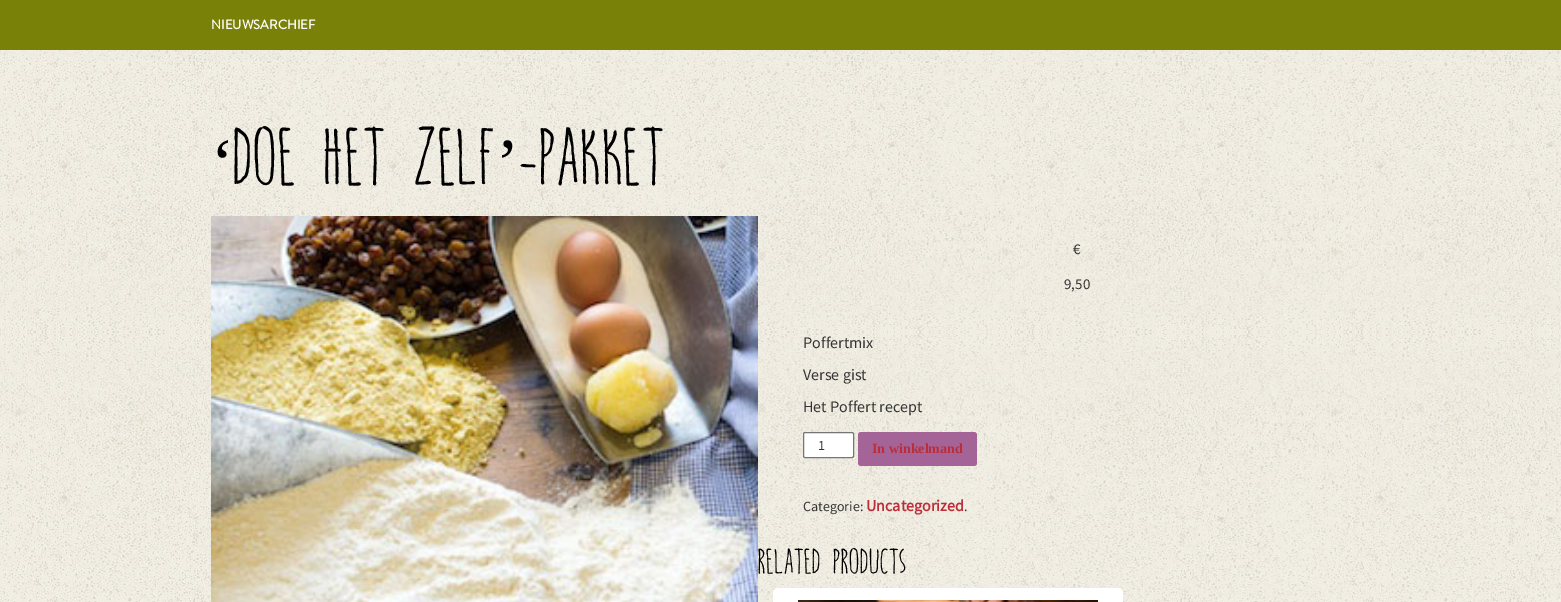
%!PS
<< /PageSize [1561 602] >> setpagedevice
/fl/fill load def
/st/stroke load def
/gs/gsave load def
/gr/grestore load def
/co { dup -16 bitshift 255 div exch dup -8 bitshift 255 and 255 div exch 255 and 255 div setrgbcolor } def
/fn { [ exch dup neg 0 0 3 -1 roll 0 0 ] selectfont } def
/tx { co fn moveto show } def
/bx { co rectfill } def
/rr { 5 dict begin { /r /h /w /y /x } { exch def } forall
  x r add y moveto x w add y 2 copy h add r arct x w add y h add x 1 index r arct
  x y h add x y r arct x y 2 copy exch w add exch r arct closepath end } def
/im { 5 dict begin { /h /w /y /x /name } { exch def } forall
  gsave x y translate w h scale
  w h 8 [w 0 0 h 0 0] name (r) file false 3 colorimage grestore end } def
0 602 translate 1 -1 scale
4 setmiterlimit
0 0 1561 602 16#FFFFFF bx
(media/1.raw) 0 50 1561 552 im
0 0 1561 50 16#7A8108 bx
(media/2.raw) 211 216 547 386 im
16#FFFFFF co
803.5 432.5 50 25 1.5 rr gs fl gr
16#767676 co
st
16#A46497 co
858 432 119 34 3 rr fl
16#FFFFFF co
773 588 350 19 5 rr fl
(media/3.raw) 798 600 300 2 im
(NIEUWSARCHIEF) 211 29 /BrandonGrotesque-Bold 13 16#FFFFFF tx
(‘) 211 186 /LiberationSerif-Regular 69 16#000000 tx
(Doe het zelf) 233 186 /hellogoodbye-Regular 69 16#000000 tx
(’) 496 186 /LiberationSerif-Regular 69 16#000000 tx
(-pakket) 519 186 /hellogoodbye-Regular 69 16#000000 tx
(€) 1073 254 /SourceSansPro-Regular 15 16#333333 tx
(9,50) 1064 289 /SourceSansPro-Regular 15 16#333333 tx
(Poffertmix) 803 348 /SourceSansPro-Regular 16 16#333333 tx
(Verse gist) 803 380 /SourceSansPro-Regular 16 16#333333 tx
(Het Poffert recept) 803 412 /SourceSansPro-Regular 16 16#333333 tx
(1) 818 450 /SourceSansPro-Regular 14 16#333333 tx
(In winkelmand) 872 453 /LiberationSerif-Bold 14 16#BC2D3A tx
(Categorie:) 803 511 /SourceSansPro-Regular 14 16#333333 tx
(Uncategorized) 866 511 /SourceSansPro-Bold 16 16#BC2D3A tx
(.) 964 511 /SourceSansPro-Regular 14 16#333333 tx
(Related Products) 758 574 /hellogoodbye-Regular 30 16#000000 tx
showpage
